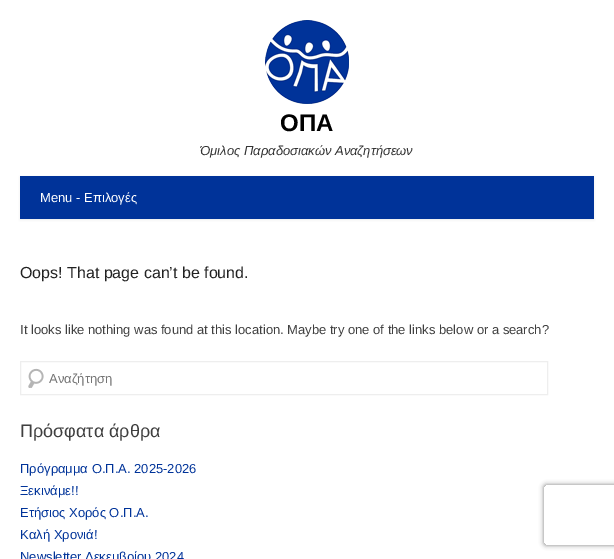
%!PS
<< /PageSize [614 559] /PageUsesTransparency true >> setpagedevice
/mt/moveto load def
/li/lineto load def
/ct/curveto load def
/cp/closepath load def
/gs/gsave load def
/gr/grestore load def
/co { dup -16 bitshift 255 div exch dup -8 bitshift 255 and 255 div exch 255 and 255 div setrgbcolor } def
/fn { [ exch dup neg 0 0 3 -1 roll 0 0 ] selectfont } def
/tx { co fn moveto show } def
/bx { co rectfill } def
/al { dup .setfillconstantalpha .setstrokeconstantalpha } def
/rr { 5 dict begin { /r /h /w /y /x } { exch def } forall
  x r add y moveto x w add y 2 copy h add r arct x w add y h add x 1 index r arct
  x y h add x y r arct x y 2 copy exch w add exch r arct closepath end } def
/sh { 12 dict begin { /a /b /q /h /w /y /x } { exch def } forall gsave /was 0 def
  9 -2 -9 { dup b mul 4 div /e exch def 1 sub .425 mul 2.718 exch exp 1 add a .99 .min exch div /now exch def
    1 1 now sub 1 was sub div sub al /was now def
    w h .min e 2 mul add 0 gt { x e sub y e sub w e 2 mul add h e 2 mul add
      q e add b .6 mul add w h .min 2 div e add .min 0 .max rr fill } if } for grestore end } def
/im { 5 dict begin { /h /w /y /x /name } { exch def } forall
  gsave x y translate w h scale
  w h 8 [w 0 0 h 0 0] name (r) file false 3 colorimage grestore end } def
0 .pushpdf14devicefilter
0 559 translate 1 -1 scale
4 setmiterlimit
0 0 614 559 16#FFFFFF bx
(media/1.raw) 265 20 84 84 im
16#404040 co
20 177 574 43 0 1 .1 sh
20 176 574 43 16#003399 bx
(media/2.raw) 28 368 16 20 im
16#EEEEEE co
20.5 361.5 527 33 rectstroke
gs
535 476 mt 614 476 li 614 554 li 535 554 li cp 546 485 mt 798 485 li 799 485 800 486 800 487 ct 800 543 li 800 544 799 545 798 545 ct 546 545 li 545 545 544 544 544 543 ct 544 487 li 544 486 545 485 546 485 ct cp eoclip newpath
16#808080 co
544 485 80 60 2 2.5 1 sh
gr
(ΟΠΑ) 280 131 /LiberationSans-Bold 24 16#000000 tx
(Όμιλος Παραδοσιακών Αναζητήσεων) 200 155 /LiberationSans-Italic 13 16#333333 tx
(Menu - Επιλογές) 40 202 /LiberationSans-Regular 13 16#FFFFFF tx
(Oops! That page can’t be found.) 20 278 /LiberationSans-Regular 16 16#222222 tx
(It looks like nothing was found at this location. Maybe try one of the links below or a search?) 20 334 /LiberationSans-Regular 13 16#404040 tx
(Αναζήτηση) 49 383 /LiberationSans-Regular 13 16#757575 tx
(Πρόσφατα άρθρα) 20 437 /LiberationSans-Regular 18 16#404040 tx
(Πρόγραμμα Ο.Π.Α. 2025-2026) 20 473 /LiberationSans-Regular 13 16#003399 tx
(Ξεκινάμε!!) 20 495 /LiberationSans-Regular 13 16#003399 tx
(Ετήσιος Χορός Ο.Π.Α.) 20 517 /LiberationSans-Regular 13 16#003399 tx
(Καλή Χρονιά!) 20 539 /LiberationSans-Regular 13 16#003399 tx
(Newsletter Δεκεμβρίου 2024) 20 561 /LiberationSans-Regular 13 16#003399 tx
.poppdf14devicefilter showpage
